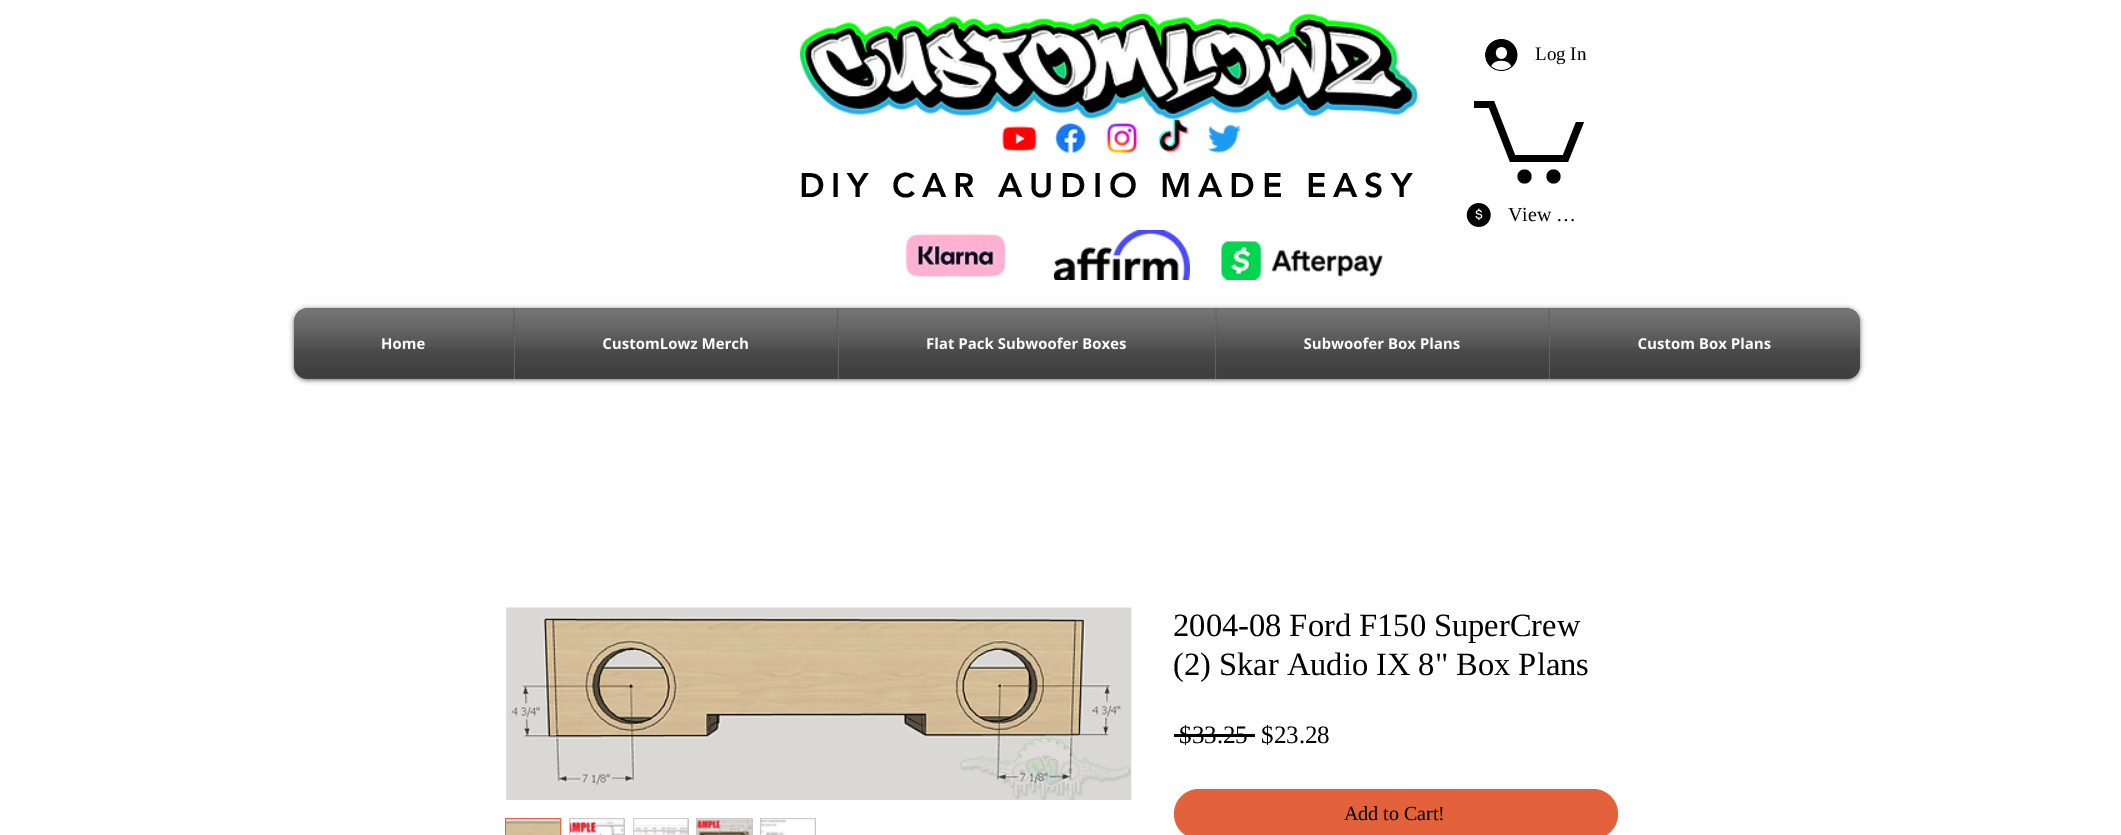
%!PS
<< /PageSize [2121 835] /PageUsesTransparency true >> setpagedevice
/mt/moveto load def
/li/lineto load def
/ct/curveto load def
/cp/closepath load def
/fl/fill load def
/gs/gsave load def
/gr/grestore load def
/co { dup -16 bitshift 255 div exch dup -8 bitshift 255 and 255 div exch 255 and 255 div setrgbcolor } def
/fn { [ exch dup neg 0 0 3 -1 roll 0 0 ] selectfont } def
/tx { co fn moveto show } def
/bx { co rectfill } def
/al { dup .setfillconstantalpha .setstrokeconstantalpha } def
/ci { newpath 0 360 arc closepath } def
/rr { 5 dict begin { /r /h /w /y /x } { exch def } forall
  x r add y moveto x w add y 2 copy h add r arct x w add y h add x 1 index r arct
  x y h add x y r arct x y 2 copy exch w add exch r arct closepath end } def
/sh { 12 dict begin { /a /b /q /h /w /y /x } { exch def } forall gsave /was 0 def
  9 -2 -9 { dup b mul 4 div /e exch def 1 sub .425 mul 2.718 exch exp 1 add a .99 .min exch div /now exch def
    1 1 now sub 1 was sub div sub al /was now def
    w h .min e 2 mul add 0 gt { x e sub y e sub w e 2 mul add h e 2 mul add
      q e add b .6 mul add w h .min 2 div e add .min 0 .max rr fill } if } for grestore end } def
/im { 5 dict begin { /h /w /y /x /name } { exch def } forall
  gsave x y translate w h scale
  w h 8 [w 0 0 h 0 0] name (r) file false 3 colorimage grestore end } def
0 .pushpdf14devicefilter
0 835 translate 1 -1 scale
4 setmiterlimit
0 0 2121 835 16#FFFFFF bx
(media/6.raw) 1157 118 32 35 im
(media/1.raw) 800 13 618 106 im
(media/2.raw) 1485 39 33 32 im
(media/3.raw) 1002 126 35 26 im
(media/4.raw) 1055 122 32 31 im
(media/5.raw) 1106 122 32 32 im
(media/7.raw) 1207 124 35 29 im
16#000000 co
1584 122 mt 1568 162 li 1510 162 li 1489 108 li 1474 108 li 1474 101 li 1494 101 li 1515 155 li 1563 155 li 1576 122 li fl
1553.5 176.5 7 ci fl
1524.5 176.5 7 ci fl
(media/8.raw) 1466 203 25 24 im
(media/9.raw) 905 233 101 44 im
(media/10.raw) 1053 230 137 50 im
(media/11.raw) 1221 241 162 39 im
gs
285 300 mt 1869 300 li 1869 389 li 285 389 li cp 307 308 mt 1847 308 li 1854 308 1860 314 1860 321 ct 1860 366 li 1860 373 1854 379 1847 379 ct 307 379 li 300 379 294 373 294 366 ct 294 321 li 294 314 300 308 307 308 ct cp eoclip newpath
294 309 1566 71 13 2.5 .6 sh
gr
0.8 al
16#464646 co
294 308 1566 71 13 rr fl
1 al
(media/12.raw) 294 308 1566 39 im
(media/13.raw) 294 351 1566 28 im
0.8 al
307 308 mt 514 308 li 514 379 li 307 379 li 300 379 294 373 294 366 ct 294 321 li 294 314 300 308 307 308 ct cp fl
514 308 324 71 16#464646 bx
0.12 al
514 308 1 71 16#FFFFFF bx
0.8 al
838 308 377 71 16#464646 bx
0.12 al
838 308 1 71 16#FFFFFF bx
0.8 al
1215 308 334 71 16#464646 bx
0.12 al
1215 308 1 71 16#FFFFFF bx
0.8 al
16#464646 co
1549 308 mt 1847 308 li 1854 308 1860 314 1860 321 ct 1860 366 li 1860 373 1854 379 1847 379 ct 1549 379 li cp fl
0.12 al
1549 308 1 71 16#FFFFFF bx
1 al
(media/24.raw) 506 607 626 193 im
559 819 1 16 16#CACACA bx
16#E3623B co
505.5 818.5 55 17 rectstroke
(media/25.raw) 506 819 55 16 im
569 818 56 17 16#CACACA bx
(media/26.raw) 569 819 55 16 im
633 818 56 17 16#CACACA bx
(media/27.raw) 633 819 55 16 im
696 818 57 17 16#CACACA bx
(media/28.raw) 697 819 55 16 im
760 818 56 17 16#CACACA bx
(media/29.raw) 761 819 54 16 im
1174 734 81 3 16#000000 bx
16#E3623B co
1174 789 444 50 25 rr fl
(Log In) 1535 60 /LiberationSerif-Regular 19 16#000000 tx
/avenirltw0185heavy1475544-Black 33.75 fn
799 197 mt 6.75 0 (DIY CAR AUDIO MADE EASY) ashow
(View …) 1508 221 /LiberationSerif-Regular 20 16#000000 tx
(Home) 381 349 /OpenSans-Bold 15 16#FFFFFF tx
(media/14.raw) 294 308 220 40 im
(media/15.raw) 294 347 220 32 im
(CustomLowz Merch) 602 349 /OpenSans-Bold 15 16#FFFFFF tx
(media/16.raw) 515 308 323 40 im
(media/17.raw) 515 347 323 32 im
(Flat Pack Subwoofer Boxes) 926 349 /OpenSans-Bold 15 16#FFFFFF tx
(media/18.raw) 838 308 377 40 im
(media/19.raw) 839 347 376 32 im
(Subwoofer Box Plans) 1304 349 /OpenSans-Bold 15 16#FFFFFF tx
(media/20.raw) 1216 308 333 40 im
(media/21.raw) 1216 347 333 32 im
(Custom Box Plans) 1638 349 /OpenSans-Bold 15 16#FFFFFF tx
(media/22.raw) 1550 308 310 40 im
(media/23.raw) 1550 347 310 32 im
(2004-08 Ford F150 SuperCrew) 1173 636 /LiberationSerif-Regular 32.5 16#000000 tx
(\(2\) Skar Audio IX 8" Box Plans) 1173 675 /LiberationSerif-Regular 32.5 16#000000 tx
($33.25) 1179 743 /LiberationSerif-Regular 25 16#000000 tx
($23.28) 1261 743 /LiberationSerif-Regular 25 16#000000 tx
(Add to Cart!) 1344 820 /LiberationSerif-Regular 20 16#000000 tx
.poppdf14devicefilter showpage
